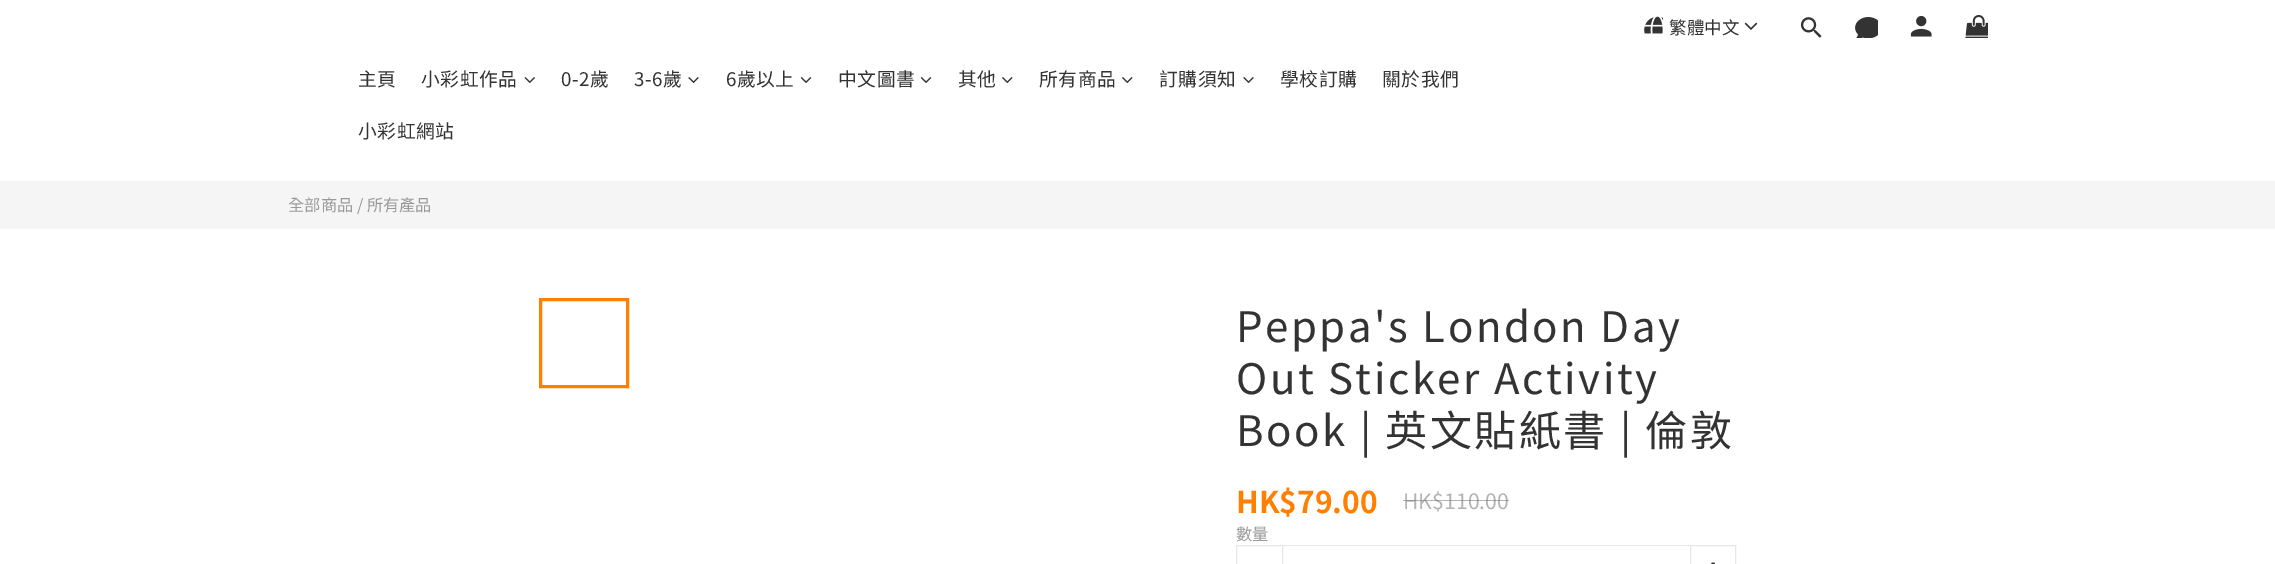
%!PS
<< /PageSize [2275 564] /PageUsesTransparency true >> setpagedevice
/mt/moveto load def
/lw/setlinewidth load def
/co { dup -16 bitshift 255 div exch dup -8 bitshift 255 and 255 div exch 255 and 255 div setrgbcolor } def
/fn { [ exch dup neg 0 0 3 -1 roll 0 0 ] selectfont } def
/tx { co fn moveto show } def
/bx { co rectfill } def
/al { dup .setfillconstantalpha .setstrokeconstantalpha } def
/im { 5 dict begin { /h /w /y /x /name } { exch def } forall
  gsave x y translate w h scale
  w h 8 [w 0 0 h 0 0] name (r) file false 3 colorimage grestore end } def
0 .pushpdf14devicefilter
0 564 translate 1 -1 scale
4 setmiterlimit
0 0 2275 564 16#FFFFFF bx
(media/1.raw) 1644 16 19 18 im
(media/2.raw) 1744 22 14 8 im
(media/3.raw) 1800 17 22 21 im
(media/4.raw) 1855 17 23 21 im
(media/5.raw) 1910 15 22 22 im
(media/6.raw) 1965 15 23 23 im
(media/7.raw) 524 77 11 6 im
(media/8.raw) 688 77 11 6 im
(media/9.raw) 800 77 12 6 im
(media/9.raw) 920 77 12 6 im
(media/10.raw) 1002 77 11 6 im
(media/10.raw) 1122 77 11 6 im
(media/8.raw) 1243 77 11 6 im
0 181 2275 48 16#F5F5F5 bx
16#FF8000 co
3 lw
540.5 299.5 87 87 rectstroke
1281 545 410 1 16#E6E6E6 bx
1 lw
1236.5 545.5 46 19 rectstroke
1690.5 545.5 45 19 rectstroke
(media/11.raw) 1711 562 4 2 im
(繁體中文) 1669 34 /NotoSansTC-Regular 17.5 16#333333 tx
/NotoSansTC-Regular 18.75 fn
358 86 mt .5 0 (主頁) ashow
421 86 mt .5 0 (小彩虹作品) ashow
561 86 mt .5 0 (0-2歲) ashow
634 86 mt .5 0 (3-6歲) ashow
726 86 mt .5 0 (6歲以上) ashow
838 86 mt .5 0 (中文圖書) ashow
958 86 mt .5 0 (其他) ashow
1039 86 mt .5 0 (所有商品) ashow
1159 86 mt .5 0 (訂購須知) ashow
1280 86 mt .5 0 (學校訂購) ashow
1382 86 mt .5 0 (關於我們) ashow
358 138 mt .5 0 (小彩虹網站) ashow
(全部商品 / 所有產品) 288 211 /NotoSansTC-Regular 16.25 16#999999 tx
/NotoSansTC-Regular 42 fn
16#333333 co
1236 342 mt 2.5 0 (Peppa's London Day) ashow
1236 394 mt 2.5 0 (Out Sticker Activity) ashow
1236 446 mt 2.5 0 (Book | 英文貼紙書 | 倫敦) ashow
(HK$79.00) 1236 513 /NotoSansTC-Bold 30 16#FF8000 tx
(HK$110.00) 1403 509 /NotoSansTC-Regular 21.25 16#B3B3B3 tx
0.6 al
1403 500 106 1 16#808080 bx
1 al
(數量) 1236 540 /NotoSansTC-Regular 16.25 16#999999 tx
.poppdf14devicefilter showpage
